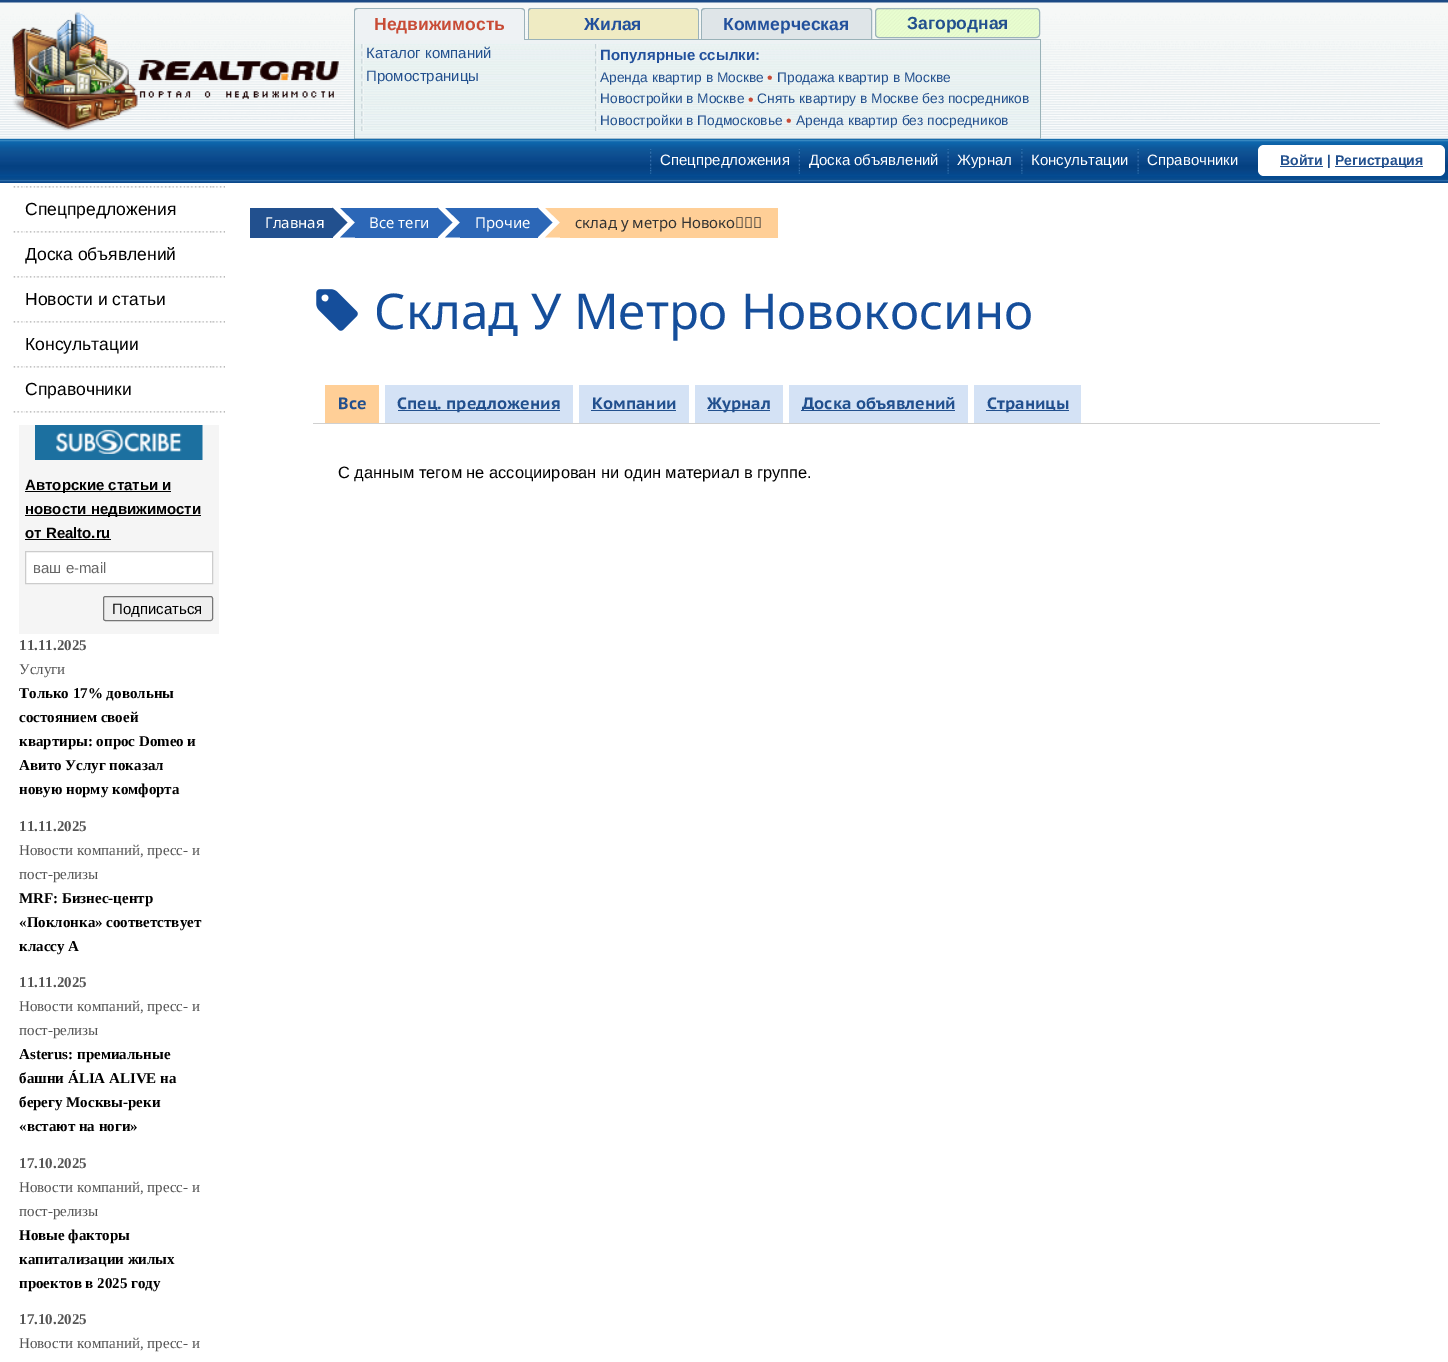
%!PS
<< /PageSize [1448 1362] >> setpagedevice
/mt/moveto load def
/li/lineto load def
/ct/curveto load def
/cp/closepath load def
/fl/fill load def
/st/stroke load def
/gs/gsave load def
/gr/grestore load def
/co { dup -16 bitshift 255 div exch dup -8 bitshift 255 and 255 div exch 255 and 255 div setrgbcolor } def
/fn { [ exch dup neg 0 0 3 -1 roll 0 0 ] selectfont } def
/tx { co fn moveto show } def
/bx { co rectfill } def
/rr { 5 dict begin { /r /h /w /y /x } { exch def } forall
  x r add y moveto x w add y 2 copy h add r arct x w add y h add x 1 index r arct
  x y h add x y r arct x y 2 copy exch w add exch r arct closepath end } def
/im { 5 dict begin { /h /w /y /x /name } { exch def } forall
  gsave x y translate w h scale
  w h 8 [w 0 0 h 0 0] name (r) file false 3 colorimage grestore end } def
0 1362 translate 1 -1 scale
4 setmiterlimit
0 0 1448 1362 16#FFFFFF bx
(media/1.raw) 0 0 1448 138 im
(media/2.raw) 12 9 327 122 im
(media/3.raw) 875 7 165 30 im
16#9BB2BA co
875.5 8.5 164 29 3.5 rr st
(media/4.raw) 353 44 689 94 im
16#EFEBC3 co
532 8 mt 695 8 li 697 8 699 10 699 12 ct 699 40 li 528 40 li 528 12 li 528 10 530 8 532 8 ct cp fl
16#9BB2BA co
531 8 mt 695 8 li 697 8 699 9 699 11 ct 699 40 li 528 40 li 528 11 li 528 9 529 8 531 8 ct cp 531 9 mt 695 9 li 696 9 698 10 698 11 ct 698 40 li 529 40 li 529 11 li 529 10 530 9 531 9 ct cp eofill
16#DFE5E8 co
705 8 mt 869 8 li 871 8 873 10 873 12 ct 873 40 li 701 40 li 701 12 li 701 10 703 8 705 8 ct cp fl
16#9BB2BA co
705 8 mt 869 8 li 871 8 872 9 872 11 ct 872 40 li 701 40 li 701 11 li 701 9 703 8 705 8 ct cp 705 9 mt 869 9 li 870 9 871 10 871 11 ct 871 40 li 702 40 li 702 11 li 702 10 704 9 705 9 ct cp eofill
525 39 516 1 16#9AB2B8 bx
1040 39 1 100 16#9AB2B8 bx
354 138 687 1 16#CFD8DC bx
354 39 1 100 16#9AB2B8 bx
16#EEF2F4 co
358 8 mt 521 8 li 523 8 525 10 525 12 ct 525 40 li 354 40 li 354 12 li 354 10 356 8 358 8 ct cp fl
16#9BB2BA co
358 8 mt 521 8 li 523 8 525 9 525 11 ct 525 40 li 354 40 li 354 11 li 354 9 355 8 358 8 ct cp 358 9 mt 521 9 li 523 9 524 10 524 11 ct 524 40 li 355 40 li 355 11 li 355 10 356 9 358 9 ct cp eofill
355 40 685 4 16#EDF2F4 bx
(media/5.raw) 361 44 3 87 im
(media/6.raw) 595 44 3 87 im
0 139 1448 44 16#0B498C bx
(media/7.raw) 0 138 1448 44 im
(media/8.raw) 650 149 2 25 im
(media/9.raw) 798 149 2 25 im
(media/10.raw) 947 149 2 25 im
(media/11.raw) 1021 149 2 25 im
(media/10.raw) 1137 149 2 25 im
16#FFFFFF co
1258 145 187 31 6 rr fl
1280 166 43 1 16#22508E bx
1335 166 88 1 16#22508E bx
(media/12.raw) 13 186 212 2 im
(media/12.raw) 13 231 212 2 im
(media/12.raw) 13 276 212 2 im
(media/12.raw) 13 321 212 2 im
(media/12.raw) 13 366 212 2 im
(media/12.raw) 13 411 212 2 im
19 425 200 209 16#F5F5F5 bx
(media/13.raw) 35 425 168 35 im
25 491 146 1 16#000000 bx
25 515 176 1 16#000000 bx
25 539 86 1 16#000000 bx
16#FFFFFF co
25.5 551.5 mt 212.5 551.5 li 212.5 583.5 li 25.5 583.5 li cp gs fl gr
16#CCCCCC co
st
16#EFEFEF co
103.5 596.5 109 24 2 rr gs fl gr
16#767676 co
st
250 208 83 30 16#22508E bx
332.5 237.5 mt 332.5 207.5 li 347.5 222.5 li cp fl
355 208 83 30 16#2C67B7 bx
gs
250 208 1193 45 rectclip
340 207.5 mt 370 207.5 li 355 222.5 li cp fl
gr
370 237.5 mt 340 237.5 li 355 222.5 li cp fl
437.5 237.5 mt 437.5 207.5 li 452.5 222.5 li cp fl
460 208 78 30 16#2C67B7 bx
gs
250 208 1193 45 rectclip
445 207.5 mt 475 207.5 li 460 222.5 li cp fl
gr
475 237.5 mt 445 237.5 li 460 222.5 li cp fl
537.5 237.5 mt 537.5 207.5 li 552.5 222.5 li cp fl
560 208 218 30 16#FFCF97 bx
gs
250 208 1193 45 rectclip
545 207.5 mt 575 207.5 li 560 222.5 li cp fl
gr
575 237.5 mt 545 237.5 li 560 222.5 li cp fl
(media/14.raw) 316 289 42 42 im
313 423 1067 1 16#D0D0D0 bx
325 385 54 38 16#FFCF97 bx
385 385 188 38 16#D4E2F5 bx
398 410 162 1 16#22508E bx
579 385 110 38 16#D4E2F5 bx
591 410 85 1 16#22508E bx
695 385 88 38 16#D4E2F5 bx
708 410 62 1 16#22508E bx
789 385 179 38 16#D4E2F5 bx
801 410 154 1 16#22508E bx
974 385 107 38 16#D4E2F5 bx
986 410 83 1 16#22508E bx
(Загородная) 907 29 /LiberationSans-Bold 17.5 16#22508E tx
(Недвижимость) 374 30 /LiberationSans-Bold 17.5 16#C84C36 tx
(Каталог компаний) 366 58 /LiberationSans-Regular 15 16#22508E tx
(Промостраницы) 366 81 /LiberationSans-Regular 15 16#22508E tx
(Популярные ссылки:) 600 60 /LiberationSans-Bold 15 16#22509C tx
(Аренда квартир в Москве) 600 82 /LiberationSans-Regular 13.75 16#22508E tx
(•) 767 83 /LiberationSans-Regular 16 16#C84C36 tx
(Продажа квартир в Москве) 777 82 /LiberationSans-Regular 13.75 16#22508E tx
(Новостройки в Москве) 600 103 /LiberationSans-Regular 13.75 16#22508E tx
(•) 748 105 /LiberationSans-Regular 16 16#C84C36 tx
(Снять квартиру в Москве без посредников) 757 103 /LiberationSans-Regular 13.75 16#22508E tx
(Новостройки в Подмосковье) 600 125 /LiberationSans-Regular 13.75 16#22508E tx
(•) 786 126 /LiberationSans-Regular 16 16#C84C36 tx
(Аренда квартир без посредников) 796 125 /LiberationSans-Regular 13.75 16#22508E tx
(Жилая) 584 30 /LiberationSans-Bold 17.5 16#22509C tx
(Коммерческая) 723 30 /LiberationSans-Bold 17.5 16#22509C tx
(Спецпредложения) 660 165 /LiberationSans-Regular 15 16#FFFFFF tx
(Доска объявлений) 809 165 /LiberationSans-Regular 15 16#FFFFFF tx
(Журнал) 957 165 /LiberationSans-Regular 15 16#FFFFFF tx
(Консультации) 1031 165 /LiberationSans-Regular 15 16#FFFFFF tx
(Справочники) 1147 165 /LiberationSans-Regular 15 16#FFFFFF tx
(Войти |) 1280 165 /LiberationSans-Bold 14 16#22508E tx
(Регистрация) 1335 165 /LiberationSans-Bold 14 16#22508E tx
(Спецпредложения) 25 215 /LiberationSans-Regular 17.5 16#000000 tx
(Доска объявлений) 25 260 /LiberationSans-Regular 17.5 16#000000 tx
(Новости и статьи) 25 305 /LiberationSans-Regular 17.5 16#000000 tx
(Консультации) 25 350 /LiberationSans-Regular 17.5 16#000000 tx
(Справочники) 25 395 /LiberationSans-Regular 17.5 16#000000 tx
(Авторские статьи и) 25 490 /LiberationSans-Bold 15 16#000000 tx
(новости недвижимости) 25 514 /LiberationSans-Bold 15 16#000000 tx
(от Realto.ru) 25 538 /LiberationSans-Bold 15 16#000000 tx
(ваш e-mail) 33 573 /LiberationSans-Regular 15 16#666666 tx
(Подписаться) 112 614 /LiberationSans-Regular 15 16#000000 tx
(11.11.2025) 19 650 /LiberationSerif-Bold 15 16#555555 tx
(Услуги) 19 674 /LiberationSerif-Regular 15 16#555555 tx
(Только 17% довольны) 19 698 /LiberationSerif-Bold 15 16#000000 tx
(состоянием своей) 19 722 /LiberationSerif-Bold 15 16#000000 tx
(квартиры: опрос Domeo и) 19 746 /LiberationSerif-Bold 15 16#000000 tx
(Авито Услуг показал) 19 770 /LiberationSerif-Bold 15 16#000000 tx
(новую норму комфорта) 19 794 /LiberationSerif-Bold 15 16#000000 tx
(11.11.2025) 19 831 /LiberationSerif-Bold 15 16#555555 tx
(Новости компаний, пресс- и) 19 855 /LiberationSerif-Regular 15 16#555555 tx
(пост-релизы) 19 879 /LiberationSerif-Regular 15 16#555555 tx
(MRF: Бизнес-центр) 19 903 /LiberationSerif-Bold 15 16#000000 tx
(«Поклонка» соответствует) 19 927 /LiberationSerif-Bold 15 16#000000 tx
(классу А) 19 951 /LiberationSerif-Bold 15 16#000000 tx
(11.11.2025) 19 987 /LiberationSerif-Bold 15 16#555555 tx
(Новости компаний, пресс- и) 19 1011 /LiberationSerif-Regular 15 16#555555 tx
(пост-релизы) 19 1035 /LiberationSerif-Regular 15 16#555555 tx
(Asterus: премиальные) 19 1059 /LiberationSerif-Bold 15 16#000000 tx
(башни ÁLIA ALIVE на) 19 1083 /LiberationSerif-Bold 15 16#000000 tx
(берегу Москвы-реки) 19 1107 /LiberationSerif-Bold 15 16#000000 tx
(«встают на ноги») 19 1131 /LiberationSerif-Bold 15 16#000000 tx
(17.10.2025) 19 1168 /LiberationSerif-Bold 15 16#555555 tx
(Новости компаний, пресс- и) 19 1192 /LiberationSerif-Regular 15 16#555555 tx
(пост-релизы) 19 1216 /LiberationSerif-Regular 15 16#555555 tx
(Новые факторы) 19 1240 /LiberationSerif-Bold 15 16#000000 tx
(капитализации жилых) 19 1264 /LiberationSerif-Bold 15 16#000000 tx
(проектов в 2025 году) 19 1288 /LiberationSerif-Bold 15 16#000000 tx
(17.10.2025) 19 1324 /LiberationSerif-Bold 15 16#555555 tx
(Новости компаний, пресс- и) 19 1348 /LiberationSerif-Regular 15 16#555555 tx
(Главная) 265 228 /NotoSans-Regular 15 16#FFFFFF tx
(Все теги) 369 228 /NotoSans-Regular 15 16#FFFFFF tx
(Прочие) 475 228 /NotoSans-Regular 15 16#FFFFFF tx
(склад у метро Новоко...) 575 228 /NotoSans-Regular 15 16#333333 tx
(Склад У Метро Новокосино) 374 329 /NotoSans-Regular 49.25 16#154E9B tx
(Все) 338 409 /PTSansCaption-Bold 16.4 16#22508E tx
(Спец. предложения) 397 409 /PTSansCaption-Bold 16.4 16#22508E tx
(Компании) 592 409 /PTSansCaption-Bold 16.4 16#22508E tx
(Журнал) 707 409 /PTSansCaption-Bold 16.4 16#22508E tx
(Доска объявлений) 802 409 /PTSansCaption-Bold 16.4 16#22508E tx
(Страницы) 987 409 /PTSansCaption-Bold 16.4 16#22508E tx
(С данным тегом не ассоциирован ни один материал в группе.) 338 478 /LiberationSans-Regular 16.4 16#000000 tx
showpage
